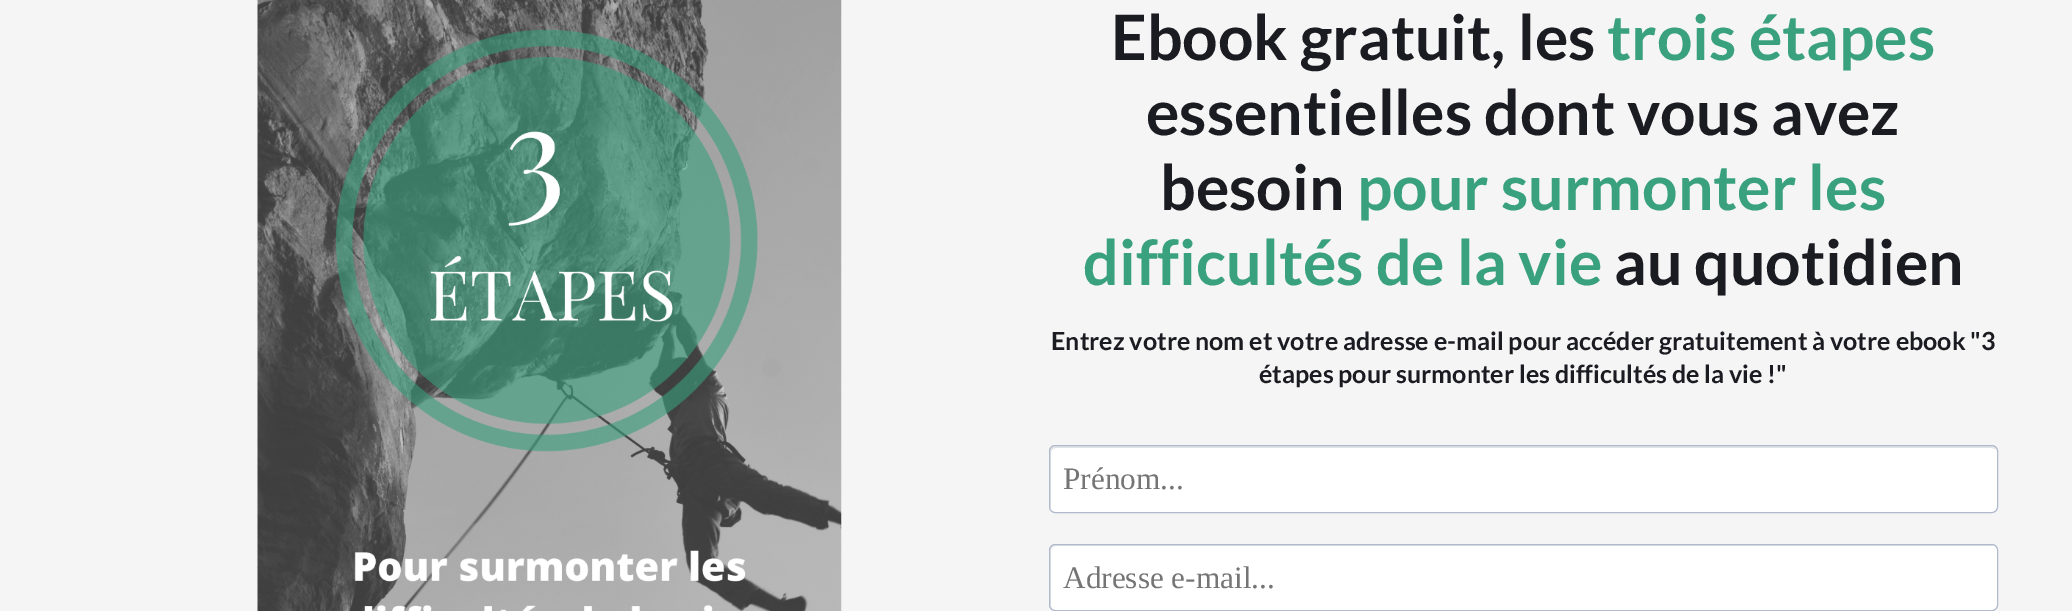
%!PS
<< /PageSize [2072 611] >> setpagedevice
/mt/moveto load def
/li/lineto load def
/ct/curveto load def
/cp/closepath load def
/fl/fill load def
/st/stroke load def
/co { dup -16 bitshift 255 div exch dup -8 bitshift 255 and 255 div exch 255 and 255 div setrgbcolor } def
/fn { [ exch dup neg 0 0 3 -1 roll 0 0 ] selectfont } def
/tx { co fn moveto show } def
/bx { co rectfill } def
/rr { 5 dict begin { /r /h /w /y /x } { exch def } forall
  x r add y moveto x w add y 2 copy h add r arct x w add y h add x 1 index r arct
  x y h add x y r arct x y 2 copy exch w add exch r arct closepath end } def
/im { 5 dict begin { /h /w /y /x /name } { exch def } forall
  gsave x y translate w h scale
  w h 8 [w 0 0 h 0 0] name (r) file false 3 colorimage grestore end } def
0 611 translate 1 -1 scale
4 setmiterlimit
0 0 2072 611 16#F5F5F5 bx
(media/1.raw) 257 0 585 611 im
16#FFFFFF co
1049 445 949 68 6 rr fl
16#E2E4E7 co
1056 448 mt 1992 448 li 1996 449 li 1995 447 1993 446 1991 446 ct 1055 446 li 1052 446 1050 448 1050 451 ct 1050 506 li 1050 507 1050 508 1051 509 ct 1051 461 li 1051 457 1049 448 1056 448 ct cp fl
16#B0BACA co
1049.5 445.5 948 67 5.5 rr st
16#FFFFFF co
1049 544 949 67 6 rr fl
16#E2E4E7 co
1056 546 mt 1992 546 li 1995 546 li 1994 546 1992 545 1991 545 ct 1055 545 li 1052 545 1050 547 1050 550 ct 1050 605 li 1050 606 1051 608 1052 609 ct 1051 606 li 1051 551 li 1051 548 1053 546 1056 546 ct cp fl
16#B0BACA co
1049.5 544.5 948 66 5.5 rr st
(Ebook gratuit, les) 1111 60 /Lato-Bold 62.5 16#1B1B22 tx
(trois étapes) 1607 60 /Lato-Bold 62.5 16#3AA17E tx
(essentielles dont vous avez) 1146 135 /Lato-Bold 62.5 16#1B1B22 tx
(besoin) 1160 210 /Lato-Bold 62.5 16#1B1B22 tx
(pour surmonter les) 1357 210 /Lato-Bold 62.5 16#3AA17E tx
(difficultés de la vie) 1083 285 /Lato-Bold 62.5 16#3AA17E tx
(au quotidien) 1614 285 /Lato-Bold 62.5 16#1B1B22 tx
(Entrez votre nom et votre adresse e-mail pour accéder gratuitement à votre ebook "3) 1051 350 /Lato-Bold 25 16#1B1B22 tx
(étapes pour surmonter les difficultés de la vie !") 1259 383 /Lato-Bold 25 16#1B1B22 tx
(Prénom...) 1063 489 /LiberationSerif-Regular 31.25 16#757575 tx
(Adresse e-mail...) 1063 588 /LiberationSerif-Regular 31.25 16#757575 tx
showpage
